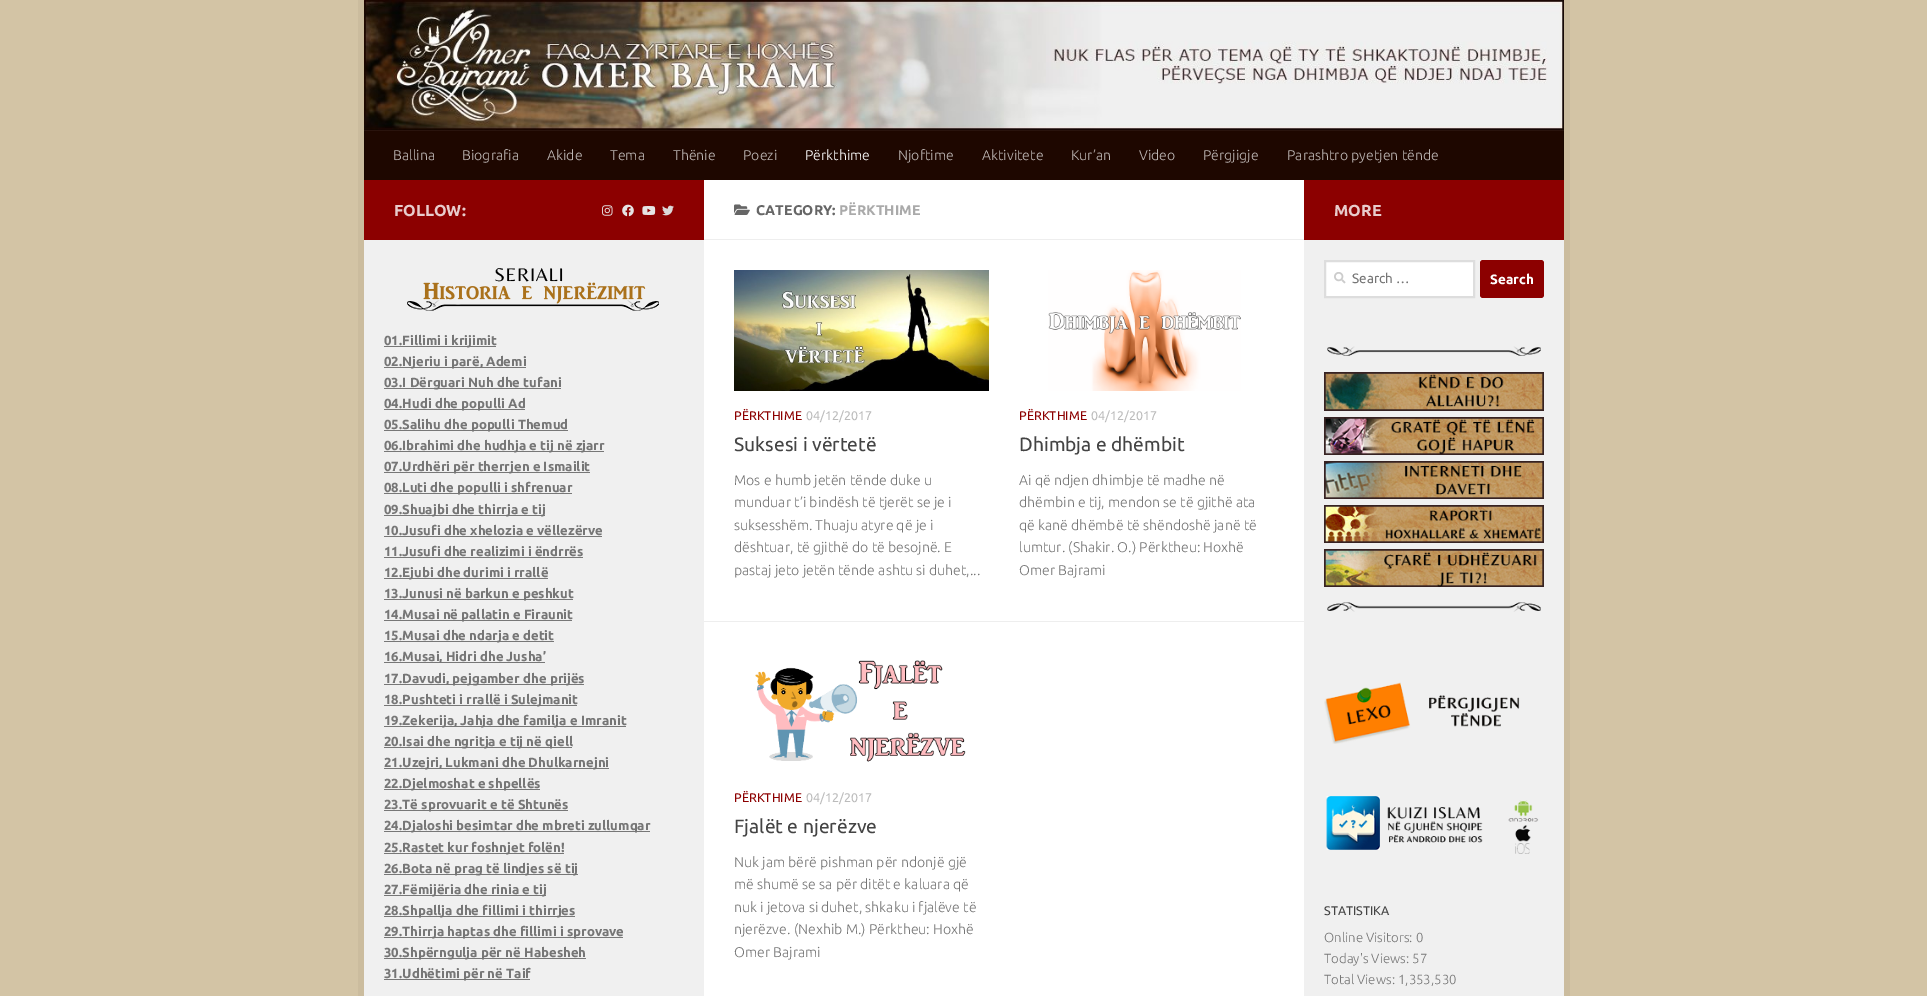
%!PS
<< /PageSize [1927 996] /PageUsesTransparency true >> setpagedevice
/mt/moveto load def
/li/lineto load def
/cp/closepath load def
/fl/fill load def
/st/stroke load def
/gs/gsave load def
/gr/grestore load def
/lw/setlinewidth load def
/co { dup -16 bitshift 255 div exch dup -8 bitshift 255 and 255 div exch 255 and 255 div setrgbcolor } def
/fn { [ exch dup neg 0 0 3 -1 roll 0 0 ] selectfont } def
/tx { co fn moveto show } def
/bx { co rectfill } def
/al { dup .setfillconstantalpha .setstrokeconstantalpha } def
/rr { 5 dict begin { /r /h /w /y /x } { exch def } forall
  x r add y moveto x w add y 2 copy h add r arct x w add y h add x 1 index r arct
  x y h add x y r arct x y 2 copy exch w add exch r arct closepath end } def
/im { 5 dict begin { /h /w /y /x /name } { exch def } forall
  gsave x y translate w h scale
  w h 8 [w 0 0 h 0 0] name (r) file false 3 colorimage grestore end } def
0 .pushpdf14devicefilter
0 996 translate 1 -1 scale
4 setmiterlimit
0 0 1927 996 16#D3C4A5 bx
358 0 6 996 16#CBBC9E bx
1564 0 6 996 16#CBBC9E bx
(media/1.raw) 364 0 1200 130 im
0.2 al
364 129 1200 1 16#000000 bx
1 al
365 131 1198 49 16#1E0700 bx
364 130 1200 1 16#29130D bx
1563 130 1 50 16#180600 bx
1563 130 1 1 16#24120D bx
364 130 1 50 16#180600 bx
364 130 1 1 16#24120D bx
704 180 600 816 16#FFFFFF bx
364 180 340 60 16#8C0000 bx
(media/2.raw) 602 205 11 11 im
(media/3.raw) 622 204 12 13 im
(media/4.raw) 642 206 14 9 im
(media/5.raw) 662 205 12 11 im
364 240 340 756 16#F0F0F0 bx
(media/6.raw) 407 268 252 43 im
384 346 112 1 16#777777 bx
384 367 142 1 16#777777 bx
384 388 177 1 16#777777 bx
384 409 141 1 16#777777 bx
384 430 184 1 16#777777 bx
384 451 220 1 16#777777 bx
384 472 206 1 16#777777 bx
384 493 188 1 16#777777 bx
384 515 161 1 16#777777 bx
384 536 218 1 16#777777 bx
384 557 199 1 16#777777 bx
384 578 164 1 16#777777 bx
384 599 189 1 16#777777 bx
384 620 188 1 16#777777 bx
384 641 170 1 16#777777 bx
384 662 161 1 16#777777 bx
384 684 200 1 16#777777 bx
384 705 193 1 16#777777 bx
384 726 242 1 16#777777 bx
384 747 188 1 16#777777 bx
384 768 225 1 16#777777 bx
384 789 156 1 16#777777 bx
384 810 184 1 16#777777 bx
384 831 266 1 16#777777 bx
384 853 180 1 16#777777 bx
384 874 194 1 16#777777 bx
384 895 162 1 16#777777 bx
384 916 191 1 16#777777 bx
384 937 239 1 16#777777 bx
384 958 202 1 16#777777 bx
384 979 146 1 16#777777 bx
704 239 600 1 16#EEEEEE bx
(media/7.raw) 734 204 16 11 im
704 621 600 1 16#EEEEEE bx
(media/8.raw) 734 270 255 121 im
(media/9.raw) 1048 270 193 121 im
(media/10.raw) 755 660 211 102 im
1304 180 260 60 16#8C0000 bx
1304 240 260 756 16#F0F0F0 bx
16#FFFFFF co
1325 261 mt 1474 261 li 1474 297 li 1325 297 li cp gs fl gr
16#DDDDDD co
2 lw
st
(media/11.raw) 1334 272 12 12 im
16#8C0000 co
1480 260 64 38 3 rr fl
(media/12.raw) 1327 346 214 10 im
(media/13.raw) 1324 372 220 39 im
(media/14.raw) 1324 417 220 38 im
(media/15.raw) 1324 461 220 38 im
(media/16.raw) 1324 505 220 38 im
(media/17.raw) 1324 549 220 38 im
(media/18.raw) 1327 602 214 10 im
(media/19.raw) 1324 682 196 62 im
(media/20.raw) 1326 796 213 58 im
(Ballina) 393 160 /Ubuntu-Light 14.1 16#BCB5B3 tx
(Biografia) 462 160 /Ubuntu-Light 14.1 16#BCB5B3 tx
(Akide) 547 160 /Ubuntu-Light 14.1 16#BCB5B3 tx
(Tema) 610 160 /Ubuntu-Light 14.1 16#BCB5B3 tx
(Thënie) 673 160 /Ubuntu-Light 14.1 16#BCB5B3 tx
(Poezi) 743 160 /Ubuntu-Light 14.1 16#BCB5B3 tx
(Përkthime) 805 160 /Ubuntu-Light 14.1 16#FFFFFF tx
(Njoftime) 898 160 /Ubuntu-Light 14.1 16#BCB5B3 tx
(Aktivitete) 982 160 /Ubuntu-Light 14.1 16#BCB5B3 tx
(Kur’an) 1071 160 /Ubuntu-Light 14.1 16#BCB5B3 tx
(Video) 1139 160 /Ubuntu-Light 14.1 16#BCB5B3 tx
(Përgjigje) 1203 160 /Ubuntu-Light 14.1 16#BCB5B3 tx
(Parashtro pyetjen tënde) 1287 160 /Ubuntu-Light 14.1 16#BCB5B3 tx
(FOLLOW:) 394 216 /Ubuntu-Bold 16 16#E8CCCC tx
(01.Fillimi i krijimit) 384 345 /Ubuntu-Bold 13.2 16#767676 tx
(02.Njeriu i parë, Ademi) 384 366 /Ubuntu-Bold 13.2 16#767676 tx
(03.I Dërguari Nuh dhe tufani) 384 387 /Ubuntu-Bold 13.2 16#767676 tx
(04.Hudi dhe populli Ad) 384 408 /Ubuntu-Bold 13.2 16#767676 tx
(05.Salihu dhe populli Themud) 384 429 /Ubuntu-Bold 13.2 16#767676 tx
(06.Ibrahimi dhe hudhja e tij në zjarr) 384 450 /Ubuntu-Bold 13.2 16#767676 tx
(07.Urdhëri për therrjen e Ismailit) 384 471 /Ubuntu-Bold 13.2 16#767676 tx
(08.Luti dhe populli i shfrenuar) 384 492 /Ubuntu-Bold 13.2 16#767676 tx
(09.Shuajbi dhe thirrja e tij) 384 514 /Ubuntu-Bold 13.2 16#767676 tx
(10.Jusufi dhe xhelozia e vëllezërve) 384 535 /Ubuntu-Bold 13.2 16#767676 tx
(11.Jusufi dhe realizimi i ëndrrës) 384 556 /Ubuntu-Bold 13.2 16#767676 tx
(12.Ejubi dhe durimi i rrallë) 384 577 /Ubuntu-Bold 13.2 16#767676 tx
(13.Junusi në barkun e peshkut) 384 598 /Ubuntu-Bold 13.2 16#767676 tx
(14.Musai në pallatin e Firaunit) 384 619 /Ubuntu-Bold 13.2 16#767676 tx
(15.Musai dhe ndarja e detit) 384 640 /Ubuntu-Bold 13.2 16#767676 tx
(16.Musai, Hidri dhe Jusha’) 384 661 /Ubuntu-Bold 13.2 16#767676 tx
(17.Davudi, pejgamber dhe prijës) 384 683 /Ubuntu-Bold 13.2 16#767676 tx
(18.Pushteti i rrallë i Sulejmanit) 384 704 /Ubuntu-Bold 13.2 16#767676 tx
(19.Zekerija, Jahja dhe familja e Imranit) 384 725 /Ubuntu-Bold 13.2 16#767676 tx
(20.Isai dhe ngritja e tij në qiell) 384 746 /Ubuntu-Bold 13.2 16#767676 tx
(21.Uzejri, Lukmani dhe Dhulkarnejni) 384 767 /Ubuntu-Bold 13.2 16#767676 tx
(22.Djelmoshat e shpellës) 384 788 /Ubuntu-Bold 13.2 16#767676 tx
(23.Të sprovuarit e të Shtunës) 384 809 /Ubuntu-Bold 13.2 16#767676 tx
(24.Djaloshi besimtar dhe mbreti zullumqar) 384 830 /Ubuntu-Bold 13.2 16#767676 tx
(25.Rastet kur foshnjet folën!) 384 852 /Ubuntu-Bold 13.2 16#767676 tx
(26.Bota në prag të lindjes së tij) 384 873 /Ubuntu-Bold 13.2 16#767676 tx
(27.Fëmijëria dhe rinia e tij) 384 894 /Ubuntu-Bold 13.2 16#767676 tx
(28.Shpallja dhe fillimi i thirrjes) 384 915 /Ubuntu-Bold 13.2 16#767676 tx
(29.Thirrja haptas dhe fillimi i sprovave) 384 936 /Ubuntu-Bold 13.2 16#767676 tx
(30.Shpërngulja për në Habesheh) 384 957 /Ubuntu-Bold 13.2 16#767676 tx
(31.Udhëtimi për në Taif) 384 978 /Ubuntu-Bold 13.2 16#767676 tx
(CATEGORY:) 756 215 /Ubuntu-Bold 14.1 16#666666 tx
(PËRKTHIME) 839 215 /Ubuntu-Bold 14.1 16#AAAAAA tx
(PËRKTHIME) 734 420 /Ubuntu-Regular 12.5 16#8C0000 tx
(04/12/2017) 806 420 /Ubuntu-Regular 12.5 16#BBBBBB tx
(Suksesi i vërtetë) 734 451 /Ubuntu-Regular 19.25 16#444444 tx
(Mos e humb jetën tënde duke u) 734 485 /Ubuntu-Light 14.1 16#767676 tx
(munduar t’i bindësh të tjerët se je i) 734 507 /Ubuntu-Light 14.1 16#767676 tx
(suksesshëm. Thuaju atyre që je i) 734 530 /Ubuntu-Light 14.1 16#767676 tx
(dështuar, të gjithë do të besojnë. E) 734 552 /Ubuntu-Light 14.1 16#767676 tx
(pastaj jeto jetën tënde ashtu si duhet,...) 734 575 /Ubuntu-Light 14.1 16#767676 tx
(PËRKTHIME) 1019 420 /Ubuntu-Regular 12.5 16#8C0000 tx
(04/12/2017) 1091 420 /Ubuntu-Regular 12.5 16#BBBBBB tx
(Dhimbja e dhëmbit) 1019 451 /Ubuntu-Regular 19.25 16#444444 tx
(Ai që ndjen dhimbje të madhe në) 1019 485 /Ubuntu-Light 14.1 16#767676 tx
(dhëmbin e tij, mendon se të gjithë ata) 1019 507 /Ubuntu-Light 14.1 16#767676 tx
(që kanë dhëmbë të shëndoshë janë të) 1019 530 /Ubuntu-Light 14.1 16#767676 tx
(lumtur. \(Shakir. O.\) Përktheu: Hoxhë) 1019 552 /Ubuntu-Light 14.1 16#767676 tx
(Omer Bajrami) 1019 575 /Ubuntu-Light 14.1 16#767676 tx
(PËRKTHIME) 734 802 /Ubuntu-Regular 12.5 16#8C0000 tx
(04/12/2017) 806 802 /Ubuntu-Regular 12.5 16#BBBBBB tx
(Fjalët e njerëzve) 734 833 /Ubuntu-Regular 19.25 16#444444 tx
(Nuk jam bërë pishman për ndonjë gjë) 734 867 /Ubuntu-Light 14.1 16#767676 tx
(më shumë se sa për ditët e kaluara që) 734 889 /Ubuntu-Light 14.1 16#767676 tx
(nuk i jetova si duhet, shkaku i fjalëve të) 734 912 /Ubuntu-Light 14.1 16#767676 tx
(njerëzve. \(Nexhib M.\) Përktheu: Hoxhë) 734 934 /Ubuntu-Light 14.1 16#767676 tx
(Omer Bajrami) 734 957 /Ubuntu-Light 14.1 16#767676 tx
(MORE) 1334 216 /Ubuntu-Bold 16 16#E8CCCC tx
(Search …) 1352 283 /Ubuntu-Regular 13.5 16#767676 tx
(Search) 1490 284 /Ubuntu-Bold 13.5 16#FFFFFF tx
(STATISTIKA) 1324 915 /Ubuntu-Regular 12.5 16#444444 tx
(Online Visitors: 0) 1324 942 /Ubuntu-Light 13.2 16#767676 tx
(Today's Views: 57) 1324 963 /Ubuntu-Light 13.2 16#767676 tx
(Total Views: 1,353,530) 1324 984 /Ubuntu-Light 13.2 16#767676 tx
.poppdf14devicefilter showpage
